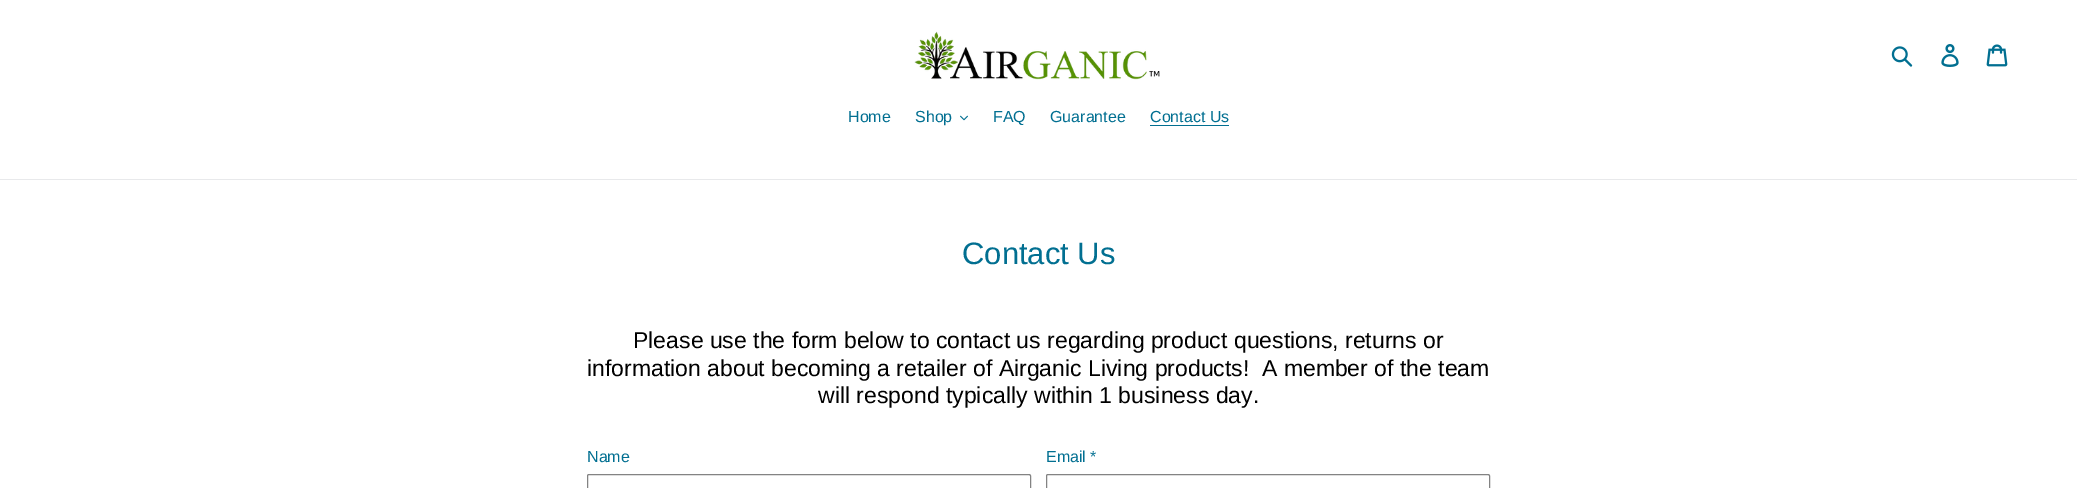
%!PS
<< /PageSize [2077 488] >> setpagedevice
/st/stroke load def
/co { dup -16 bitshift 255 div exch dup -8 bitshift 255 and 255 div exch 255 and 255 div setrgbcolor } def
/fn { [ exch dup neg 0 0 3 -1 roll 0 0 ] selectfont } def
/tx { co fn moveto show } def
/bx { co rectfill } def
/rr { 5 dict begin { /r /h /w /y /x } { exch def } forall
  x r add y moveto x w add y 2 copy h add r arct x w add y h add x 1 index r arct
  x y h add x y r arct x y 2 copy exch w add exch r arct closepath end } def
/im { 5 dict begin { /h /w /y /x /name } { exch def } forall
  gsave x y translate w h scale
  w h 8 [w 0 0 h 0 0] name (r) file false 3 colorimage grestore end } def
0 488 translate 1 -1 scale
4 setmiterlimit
0 0 2077 488 16#FFFFFF bx
(media/1.raw) 914 31 246 49 im
(media/2.raw) 1891 46 22 21 im
(media/3.raw) 1941 44 18 23 im
(media/4.raw) 1986 44 22 23 im
0 179 2077 1 16#E8E9EB bx
(media/5.raw) 960 115 8 6 im
1150 125 79 1 16#016F91 bx
16#838383 co
587.5 474.5 443 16 1.5 rr st
1046.5 474.5 443 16 1.5 rr st
(Home) 848 122 /Arimo-Regular 16 16#016F91 tx
(Shop) 915 122 /Arimo-Regular 16 16#016F91 tx
(FAQ) 993 122 /Arimo-Regular 16 16#016F91 tx
(Guarantee) 1050 122 /Arimo-Regular 16 16#016F91 tx
(Contact Us) 1150 122 /Arimo-Regular 16 16#016F91 tx
(Contact Us) 962 264 /Arimo-Regular 31 16#016F91 tx
(Please use the form below to contact us regarding product questions, returns or) 633 348 /Arimo-Regular 23 16#000000 tx
(information about becoming a retailer of Airganic Living products!  A member of the team) 587 376 /Arimo-Regular 23 16#000000 tx
(will respond typically within 1 business day.) 818 403 /Arimo-Regular 23 16#000000 tx
(Name) 587 462 /Arimo-Regular 16 16#016F91 tx
(Email *) 1046 462 /Arimo-Regular 16 16#016F91 tx
showpage
